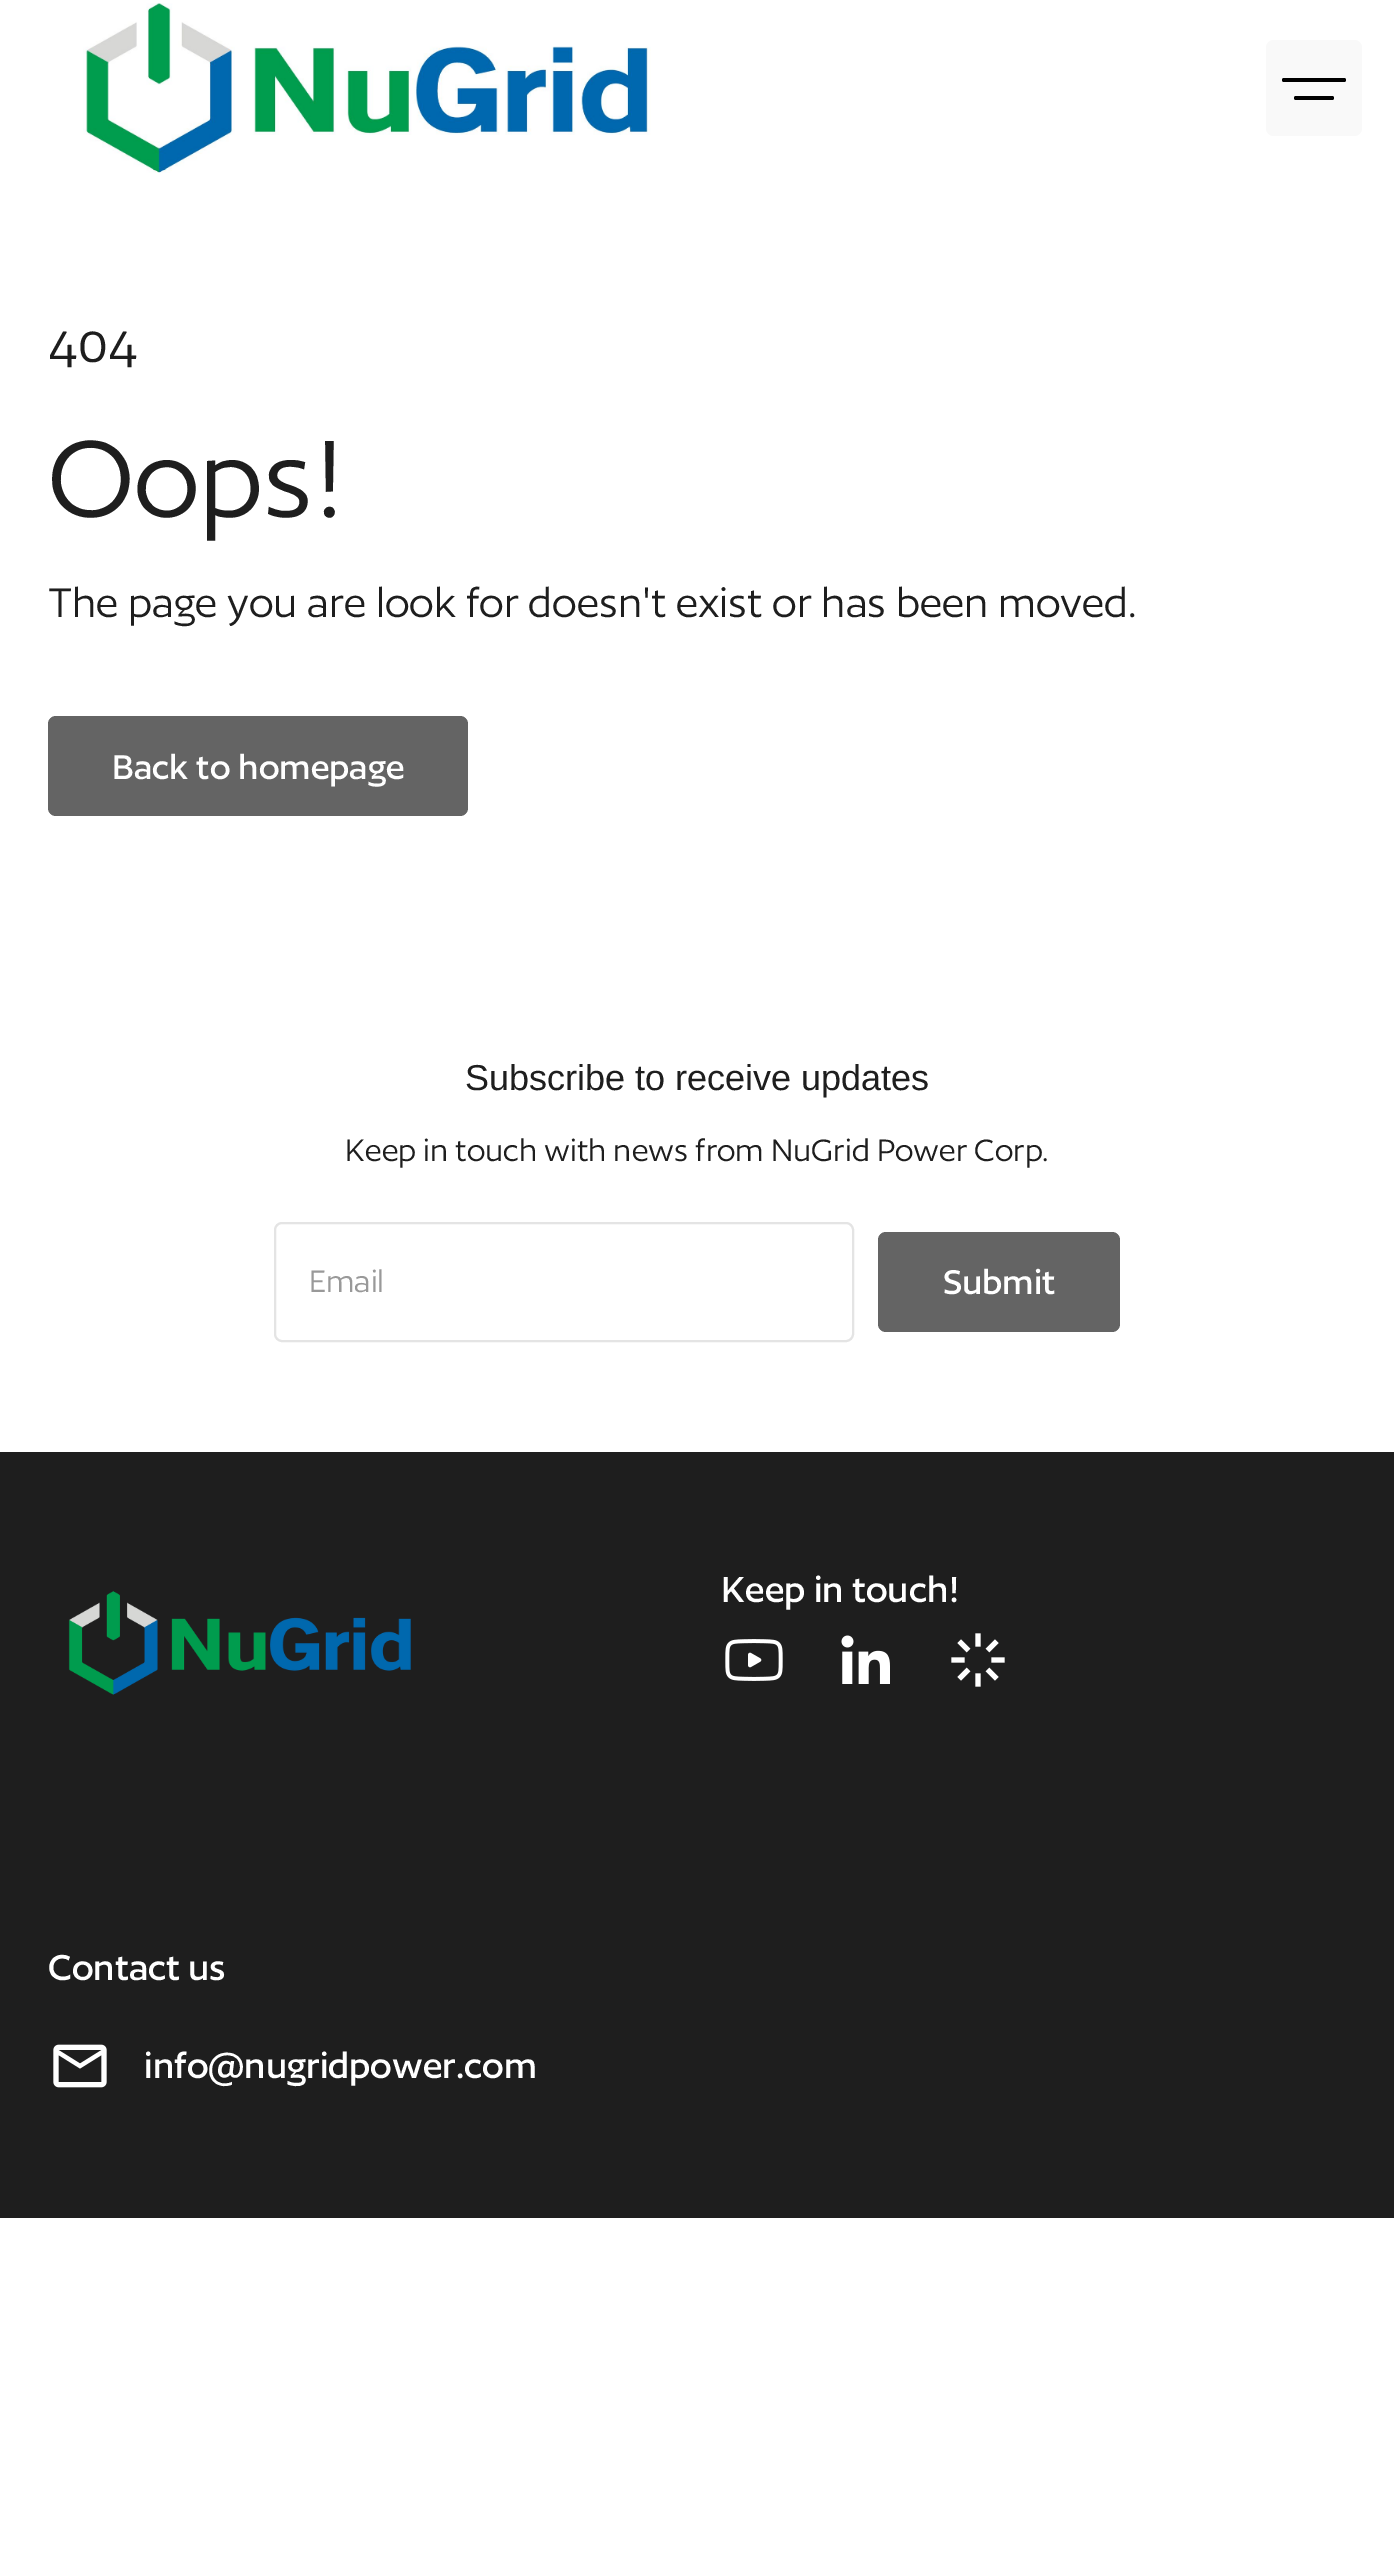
%!PS
<< /PageSize [1394 2563] >> setpagedevice
/fl/fill load def
/st/stroke load def
/lw/setlinewidth load def
/co { dup -16 bitshift 255 div exch dup -8 bitshift 255 and 255 div exch 255 and 255 div setrgbcolor } def
/fn { [ exch dup neg 0 0 3 -1 roll 0 0 ] selectfont } def
/tx { co fn moveto show } def
/bx { co rectfill } def
/rr { 5 dict begin { /r /h /w /y /x } { exch def } forall
  x r add y moveto x w add y 2 copy h add r arct x w add y h add x 1 index r arct
  x y h add x y r arct x y 2 copy exch w add exch r arct closepath end } def
/im { 5 dict begin { /h /w /y /x /name } { exch def } forall
  gsave x y translate w h scale
  w h 8 [w 0 0 h 0 0] name (r) file false 3 colorimage grestore end } def
0 2563 translate 1 -1 scale
4 setmiterlimit
0 0 1394 2563 16#FFFFFF bx
(media/1.raw) 83 3 568 170 im
16#F9F9F9 co
1266 40 96 96 8 rr fl
16#000000 co
1282 78 64 4 2 rr fl
1294 96 40 4 2 rr fl
16#646464 co
48 716 420 100 8 rr fl
0 1452 1394 766 16#1E1E1E bx
16#E4E4E4 co
2 lw
275 1223 578 118 7 rr st
16#646464 co
878 1232 242 100 8 rr fl
(media/2.raw) 68 1591 343 104 im
(media/3.raw) 725 1639 58 42 im
(media/4.raw) 841 1635 49 49 im
(media/5.raw) 951 1633 54 54 im
(media/6.raw) 53 2044 54 44 im
(404) 48 362 /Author-Regular 60 16#1E1E1E tx
(Oops!) 48 517 /Author-Regular 128 16#1E1E1E tx
(The page you are look for doesn't exist or has been moved.) 48 617 /Author-Regular 48 16#1E1E1E tx
(Back to homepage) 112 779 /Author-Medium 40 16#FFFFFF tx
(Subscribe to receive updates) 465 1090 /LiberationSans-Regular 36 16#1E1E1E tx
(Keep in touch with news from NuGrid Power Corp.) 345 1161 /Author-Regular 36 16#1E1E1E tx
(Email) 309 1292 /Author-Regular 36 16#999999 tx
(Submit) 943 1294 /Author-Medium 40 16#FFFFFF tx
(Keep in touch!) 721 1602 /Author-Medium 42 16#FFFFFF tx
(Contact us) 48 1980 /Author-Medium 42 16#FFFFFF tx
(info@nugridpower.com) 144 2078 /Author-Medium 42 16#FFFFFF tx
showpage
